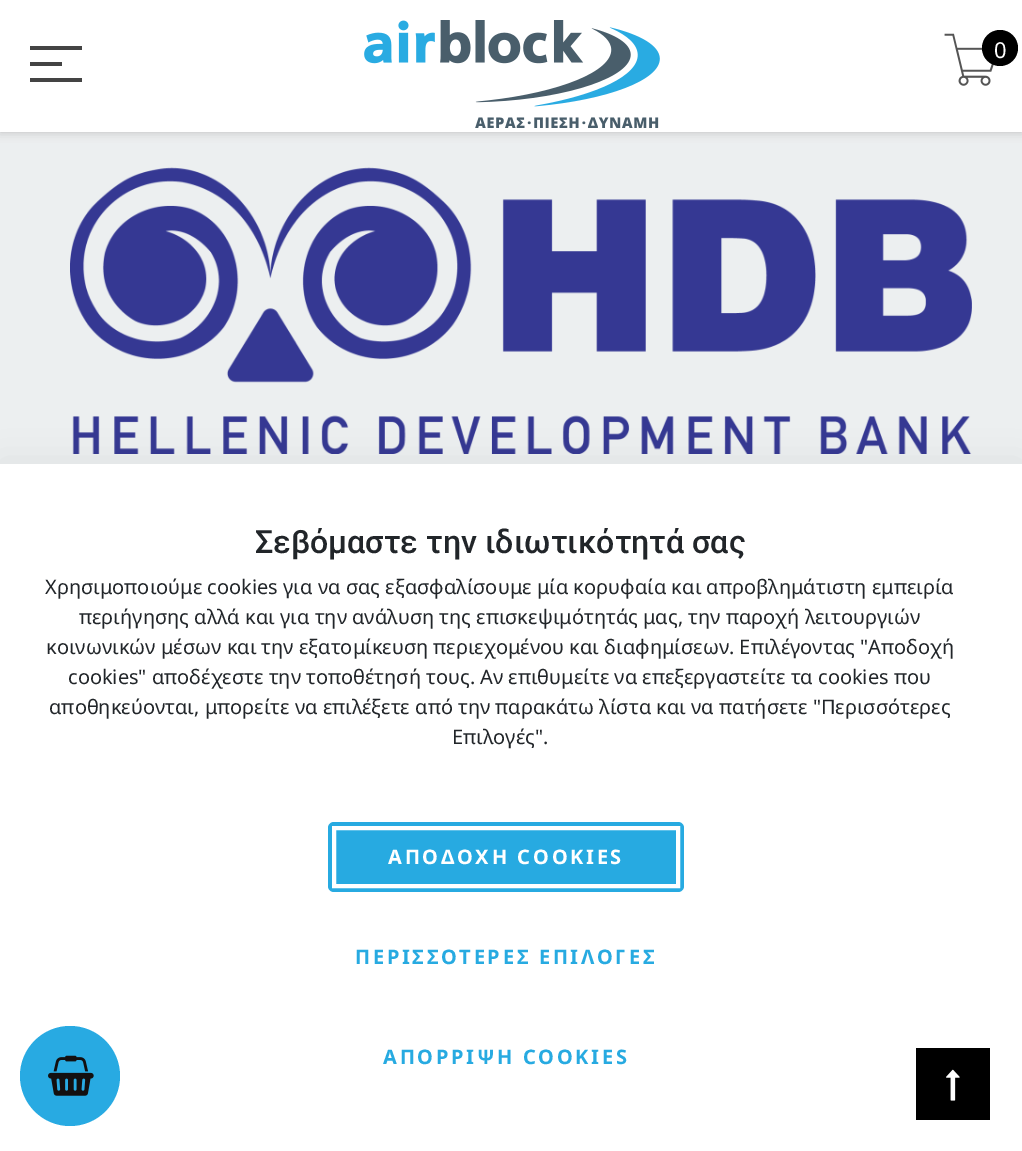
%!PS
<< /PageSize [1022 1151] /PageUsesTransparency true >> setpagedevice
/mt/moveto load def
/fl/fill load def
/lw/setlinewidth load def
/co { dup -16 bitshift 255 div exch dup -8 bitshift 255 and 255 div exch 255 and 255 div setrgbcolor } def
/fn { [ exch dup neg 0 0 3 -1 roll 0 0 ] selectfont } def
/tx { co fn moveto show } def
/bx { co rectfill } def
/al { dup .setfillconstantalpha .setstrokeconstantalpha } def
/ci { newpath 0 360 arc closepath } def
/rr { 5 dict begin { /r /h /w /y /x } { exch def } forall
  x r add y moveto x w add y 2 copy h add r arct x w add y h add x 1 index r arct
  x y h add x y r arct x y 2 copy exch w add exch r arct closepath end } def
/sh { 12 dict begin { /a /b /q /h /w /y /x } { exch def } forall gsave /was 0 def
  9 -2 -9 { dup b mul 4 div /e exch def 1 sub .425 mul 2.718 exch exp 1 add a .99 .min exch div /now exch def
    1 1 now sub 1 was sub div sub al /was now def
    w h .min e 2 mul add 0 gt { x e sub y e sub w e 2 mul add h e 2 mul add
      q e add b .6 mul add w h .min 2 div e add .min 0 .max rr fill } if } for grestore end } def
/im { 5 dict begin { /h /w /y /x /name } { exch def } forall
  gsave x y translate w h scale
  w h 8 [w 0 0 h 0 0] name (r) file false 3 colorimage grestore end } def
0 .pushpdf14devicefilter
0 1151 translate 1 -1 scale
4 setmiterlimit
0 0 1022 1151 16#ECEFF0 bx
16#BDBDBD co
0 0 1022 132 0 5 1 sh
0 0 1022 132 16#FFFFFF bx
30 46 52 4 16#444444 bx
30 78 52 4 16#444444 bx
30 62 32 4 16#444444 bx
(media/1.raw) 364 20 296 108 im
(media/2.raw) 944 33 50 53 im
16#000000 co
1000 48 18 ci fl
(media/3.raw) 70 167 902 287 im
0 460 1022 688 0 18 .06 sh
0 464 1022 687 16#FFFFFF bx
16#28AAE2 co
70 1076 50 ci fl
(media/4.raw) 48 1055 46 41 im
916 1048 74 72 16#000000 bx
(media/5.raw) 946 1069 14 32 im
16#27AAE1 co
328 822 356 70 6 rr fl
16#FFFFFF co
4 lw
334 828 344 58 rectstroke
(0) 994 58 /NotoSans-Regular 22 16#FFFFFF tx
(Σεβόμαστε την ιδιωτικότητά σας) 255 553 /Roboto-Medium 32.1 16#212529 tx
(Χρησιμοποιούμε cookies για να σας εξασφαλίσουμε μία κορυφαία και απροβλημάτιστη εμπειρία) 45 594 /NotoSans-Regular 20 16#212529 tx
(περιήγησης αλλά και για την ανάλυση της επισκεψιμότητάς μας, την παροχή λειτουργιών) 79 624 /NotoSans-Regular 20 16#212529 tx
(κοινωνικών μέσων και την εξατομίκευση περιεχομένου και διαφημίσεων. Επιλέγοντας "Αποδοχή) 46 654 /NotoSans-Regular 20 16#212529 tx
(cookies" αποδέχεστε την τοποθέτησή τους. Αν επιθυμείτε να επεξεργαστείτε τα cookies που) 68 684 /NotoSans-Regular 20 16#212529 tx
(αποθηκεύονται, μπορείτε να επιλέξετε από την παρακάτω λίστα και να πατήσετε "Περισσότερες) 49 714 /NotoSans-Regular 20 16#212529 tx
(Επιλογές".) 452 744 /NotoSans-Regular 20 16#212529 tx
/NotoSans-Bold 20 fn
16#FFFFFF co
388 864 mt 2.7 0 (ΑΠΟΔΟΧΗ COOKIES) ashow
16#27AAE1 co
355 964 mt 2.7 0 (ΠΕΡΙΣΣΟΤΕΡΕΣ ΕΠΙΛΟΓΕΣ) ashow
383 1064 mt 2.7 0 (ΑΠΟΡΡΙΨΗ COOKIES) ashow
.poppdf14devicefilter showpage
